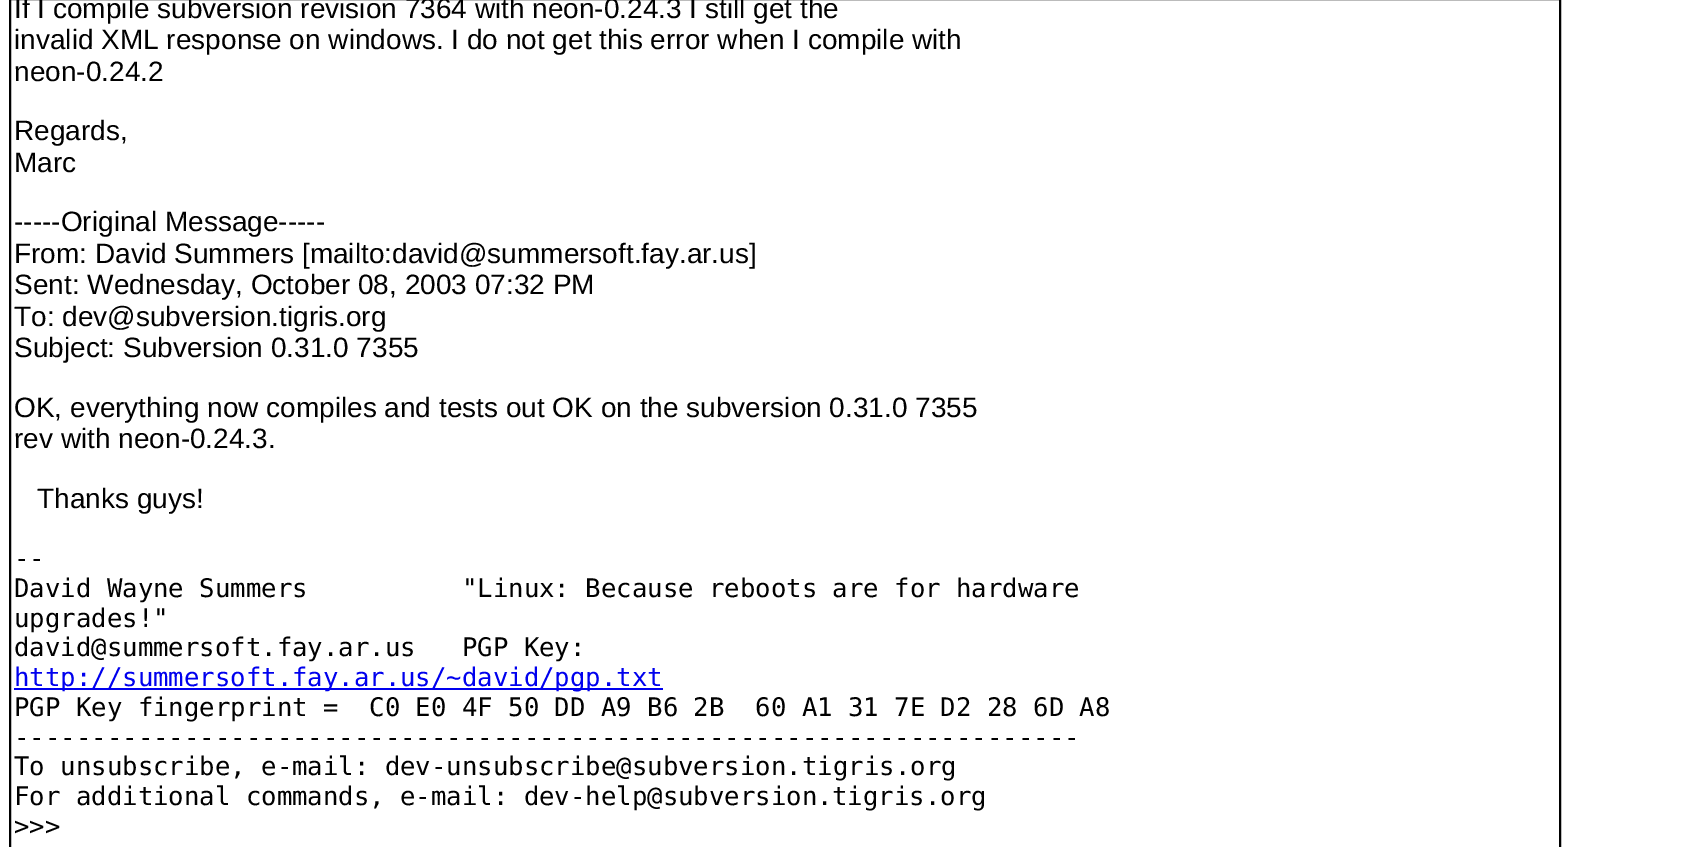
%!PS
<< /PageSize [1684 847] >> setpagedevice
/lw/setlinewidth load def
/co { dup -16 bitshift 255 div exch dup -8 bitshift 255 and 255 div exch 255 and 255 div setrgbcolor } def
/fn { [ exch dup neg 0 0 3 -1 roll 0 0 ] selectfont } def
/tx { co fn moveto show } def
/bx { co rectfill } def
0 847 translate 1 -1 scale
4 setmiterlimit
0 0 1684 847 16#FFFFFF bx
16#000000 co
2 lw
10 -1 1550 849 rectstroke
14 688 649 2 16#0000EE bx
(If I compile subversion revision 7364 with neon-0.24.3 I still get the) 14 18 /LiberationSans-Regular 28 16#000000 tx
(invalid XML response on windows. I do not get this error when I compile with) 14 49 /LiberationSans-Regular 28 16#000000 tx
(neon-0.24.2) 14 81 /LiberationSans-Regular 28 16#000000 tx
(Regards,) 14 140 /LiberationSans-Regular 28 16#000000 tx
(Marc) 14 172 /LiberationSans-Regular 28 16#000000 tx
(-----Original Message-----) 14 231 /LiberationSans-Regular 28 16#000000 tx
(From: David Summers [mailto:david@summersoft.fay.ar.us]) 14 263 /LiberationSans-Regular 28 16#000000 tx
(Sent: Wednesday, October 08, 2003 07:32 PM) 14 294 /LiberationSans-Regular 28 16#000000 tx
(To: dev@subversion.tigris.org) 14 326 /LiberationSans-Regular 28 16#000000 tx
(Subject: Subversion 0.31.0 7355) 14 357 /LiberationSans-Regular 28 16#000000 tx
(OK, everything now compiles and tests out OK on the subversion 0.31.0 7355) 14 417 /LiberationSans-Regular 28 16#000000 tx
(rev with neon-0.24.3.) 14 448 /LiberationSans-Regular 28 16#000000 tx
(Thanks guys!) 37 508 /LiberationSans-Regular 28 16#000000 tx
(--) 14 567 /DejaVuSansMono-Regular 25.65 16#000000 tx
(David Wayne Summers          "Linux: Because reboots are for hardware) 14 597 /DejaVuSansMono-Regular 25.65 16#000000 tx
(upgrades!") 14 627 /DejaVuSansMono-Regular 25.65 16#000000 tx
(david@summersoft.fay.ar.us   PGP Key:) 14 656 /DejaVuSansMono-Regular 25.65 16#000000 tx
(http://summersoft.fay.ar.us/~david/pgp.txt) 14 686 /DejaVuSansMono-Regular 25.65 16#0000EE tx
(PGP Key fingerprint =  C0 E0 4F 50 DD A9 B6 2B  60 A1 31 7E D2 28 6D A8) 14 716 /DejaVuSansMono-Regular 25.65 16#000000 tx
(---------------------------------------------------------------------) 14 746 /DejaVuSansMono-Regular 25.65 16#000000 tx
(To unsubscribe, e-mail: dev-unsubscribe@subversion.) 14 775 /DejaVuSansMono-Regular 25.65 16#000000 tx
(tigris.org) 802 775 /DejaVuSansMono-Regular 25.65 16#000000 tx
(For additional commands, e-mail: dev-help@subversion.) 14 805 /DejaVuSansMono-Regular 25.65 16#000000 tx
(tigris.org) 832 805 /DejaVuSansMono-Regular 25.65 16#000000 tx
(>>>) 14 835 /DejaVuSansMono-Regular 25.65 16#000000 tx
showpage
